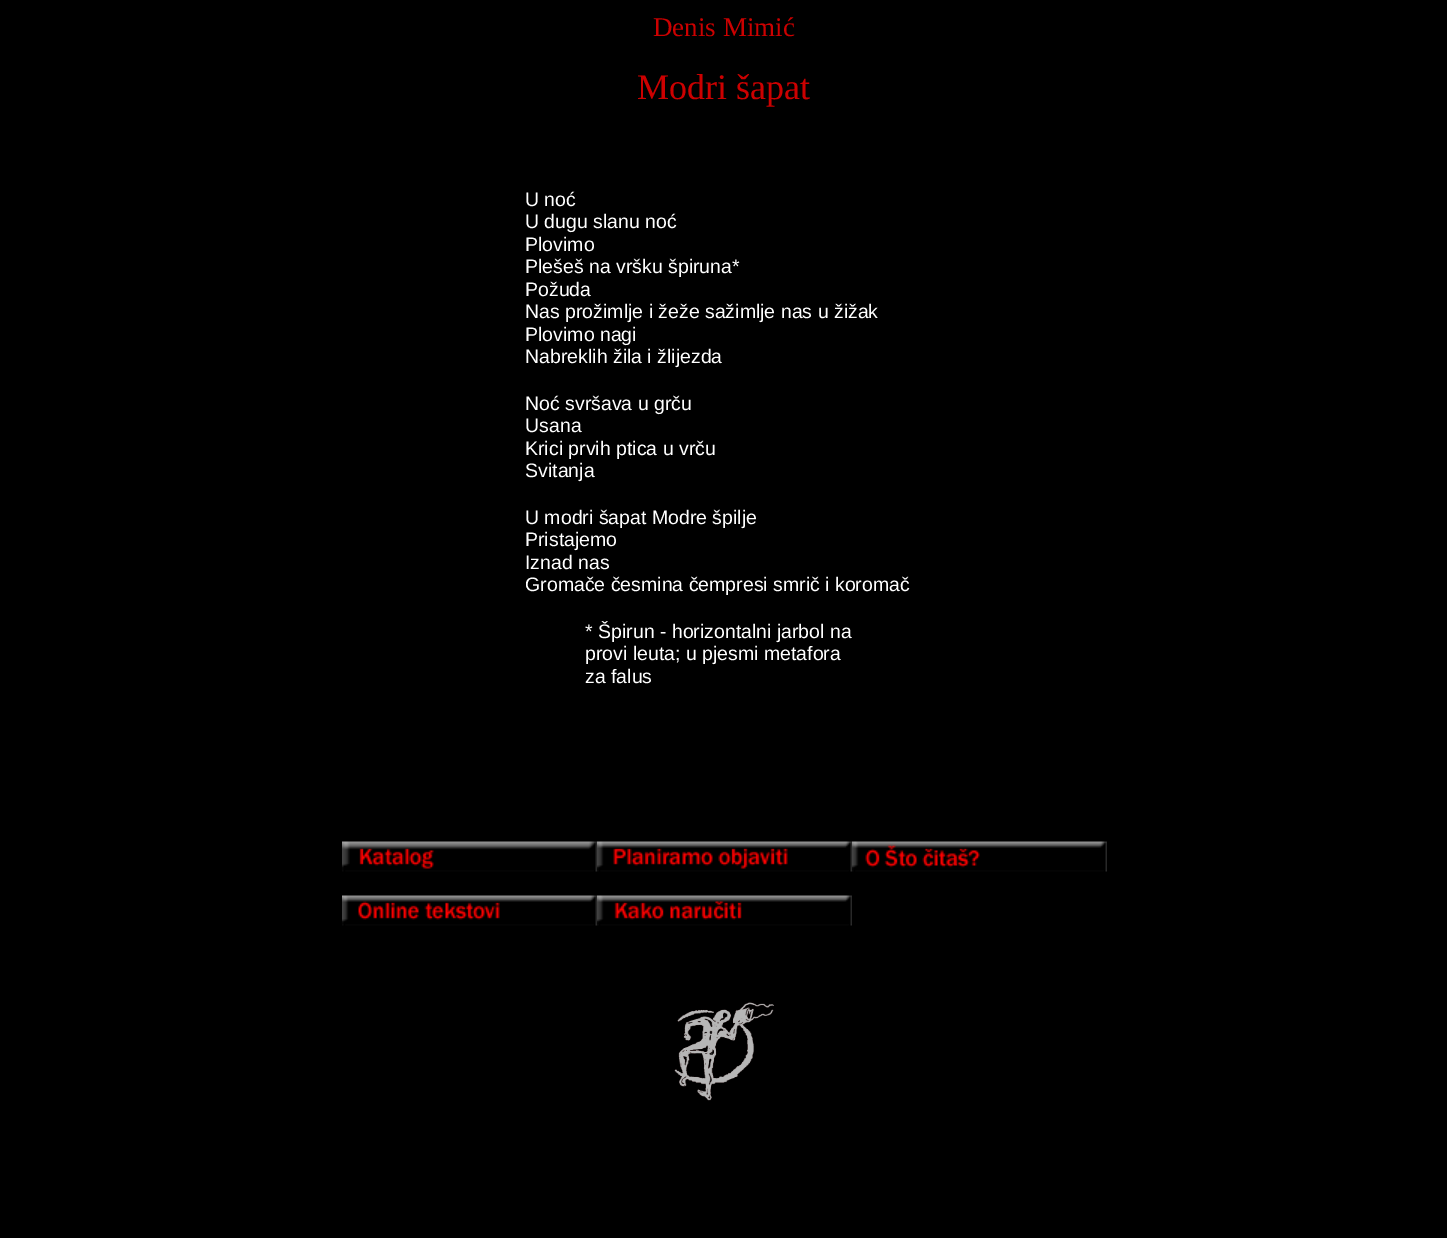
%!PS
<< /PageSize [1447 1238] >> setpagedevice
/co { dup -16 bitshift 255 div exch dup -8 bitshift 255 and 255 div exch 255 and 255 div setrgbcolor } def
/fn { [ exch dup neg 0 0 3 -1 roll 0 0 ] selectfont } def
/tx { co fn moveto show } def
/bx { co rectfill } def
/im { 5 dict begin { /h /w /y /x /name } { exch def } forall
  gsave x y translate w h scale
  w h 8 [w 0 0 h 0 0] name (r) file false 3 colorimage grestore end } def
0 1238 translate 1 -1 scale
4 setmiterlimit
0 0 1447 1238 16#000000 bx
(media/1.raw) 342 841 255 31 im
(media/2.raw) 597 841 255 31 im
(media/3.raw) 852 841 255 31 im
(media/4.raw) 342 895 255 31 im
(media/5.raw) 597 895 255 31 im
(media/6.raw) 674 1002 100 99 im
(Denis Mimić) 653 36 /LiberationSerif-Regular 27 16#CC0000 tx
(Modri šapat) 637 99 /LiberationSerif-Regular 36 16#CC0000 tx
(U noć) 525 206 /LiberationSans-Regular 19.5 16#FFFFFF tx
(U dugu slanu noć) 525 228 /LiberationSans-Regular 19.5 16#FFFFFF tx
(Plovimo) 525 251 /LiberationSans-Regular 19.5 16#FFFFFF tx
(Plešeš na vršku špiruna*) 525 273 /LiberationSans-Regular 19.5 16#FFFFFF tx
(Požuda) 525 296 /LiberationSans-Regular 19.5 16#FFFFFF tx
(Nas prožimlje i žeže sažimlje nas u žižak) 525 318 /LiberationSans-Regular 19.5 16#FFFFFF tx
(Plovimo nagi) 525 341 /LiberationSans-Regular 19.5 16#FFFFFF tx
(Nabreklih žila i žlijezda) 525 363 /LiberationSans-Regular 19.5 16#FFFFFF tx
(Noć svršava u grču) 525 410 /LiberationSans-Regular 19.5 16#FFFFFF tx
(Usana) 525 432 /LiberationSans-Regular 19.5 16#FFFFFF tx
(Krici prvih ptica u vrču) 525 455 /LiberationSans-Regular 19.5 16#FFFFFF tx
(Svitanja) 525 477 /LiberationSans-Regular 19.5 16#FFFFFF tx
(U modri šapat Modre špilje) 525 524 /LiberationSans-Regular 19.5 16#FFFFFF tx
(Pristajemo) 525 546 /LiberationSans-Regular 19.5 16#FFFFFF tx
(Iznad nas) 525 569 /LiberationSans-Regular 19.5 16#FFFFFF tx
(Gromače česmina čempresi smrič i koromač) 525 591 /LiberationSans-Regular 19.5 16#FFFFFF tx
(* Špirun - horizontalni jarbol na) 585 638 /LiberationSans-Regular 19.5 16#FFFFFF tx
(provi leuta; u pjesmi metafora) 585 660 /LiberationSans-Regular 19.5 16#FFFFFF tx
(za falus) 585 683 /LiberationSans-Regular 19.5 16#FFFFFF tx
showpage
